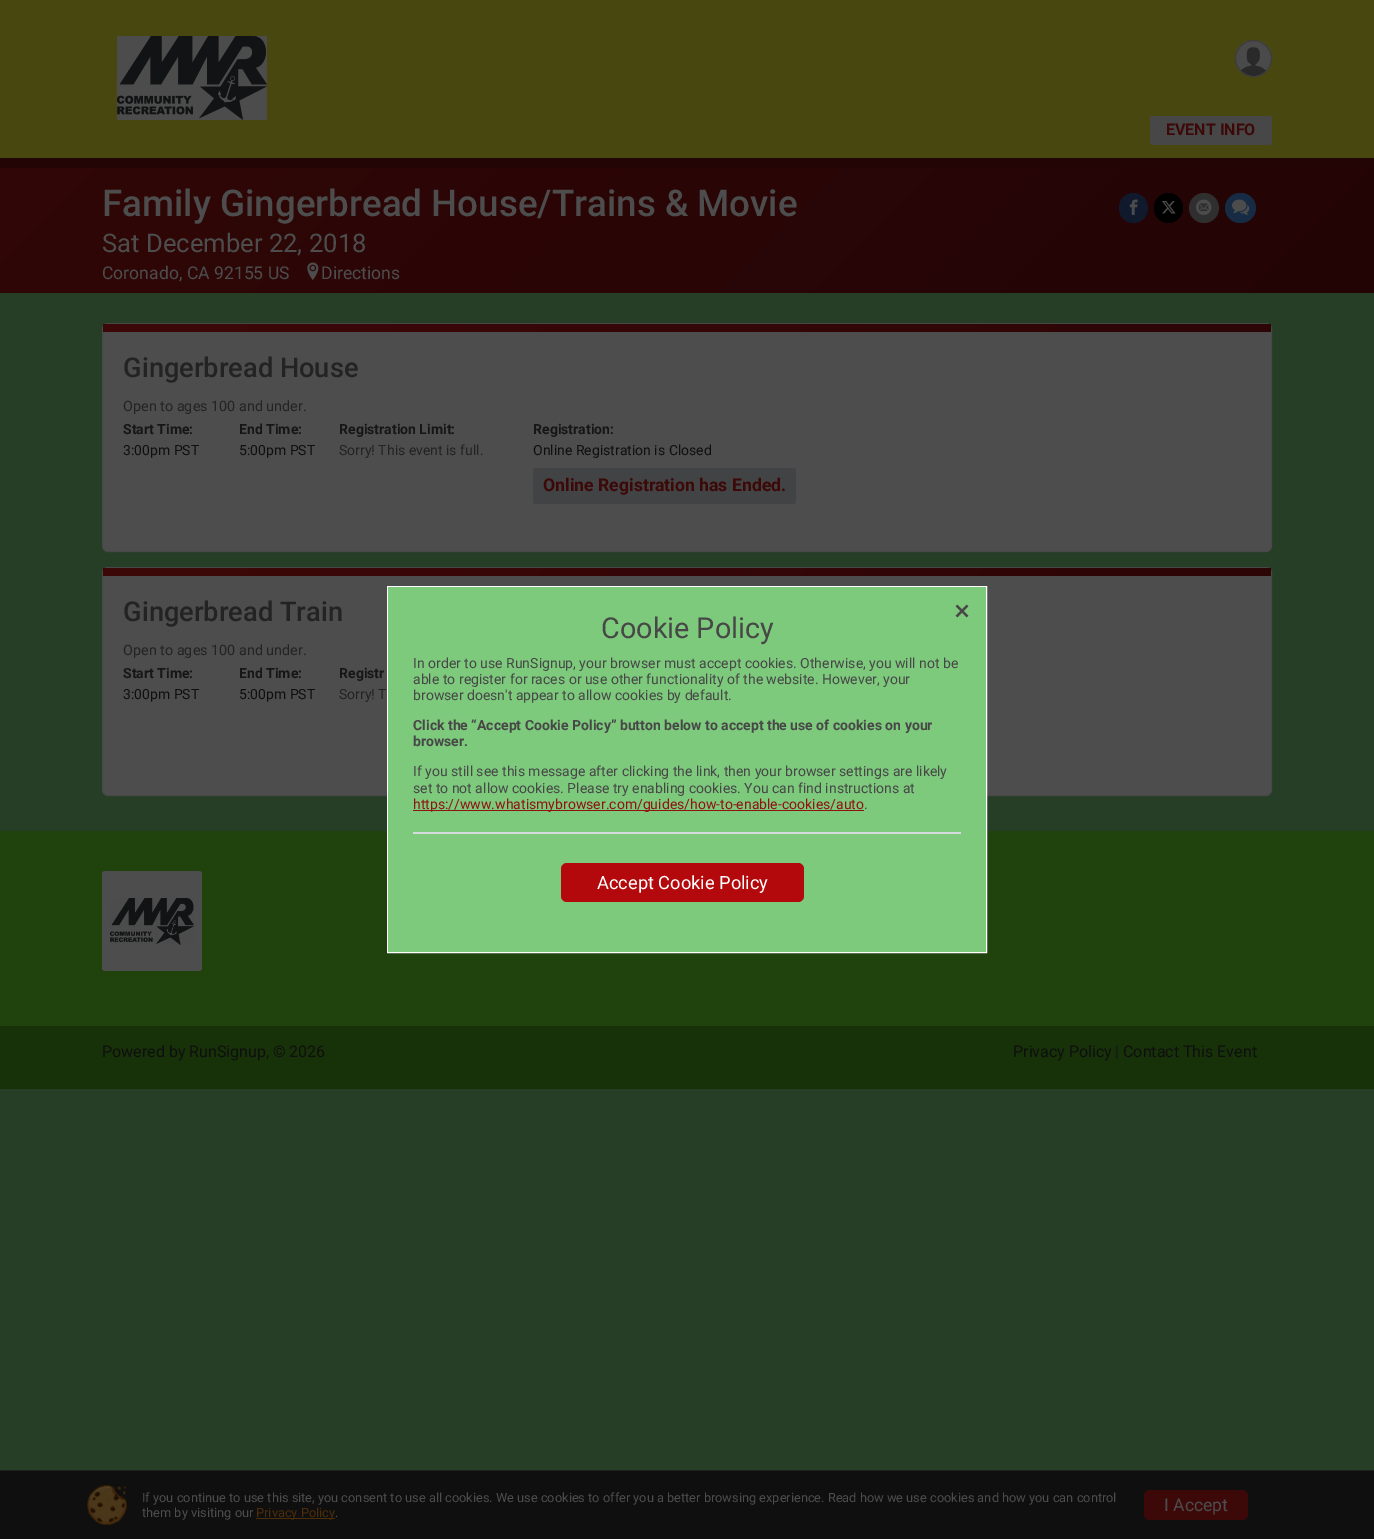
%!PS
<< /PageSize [1374 1539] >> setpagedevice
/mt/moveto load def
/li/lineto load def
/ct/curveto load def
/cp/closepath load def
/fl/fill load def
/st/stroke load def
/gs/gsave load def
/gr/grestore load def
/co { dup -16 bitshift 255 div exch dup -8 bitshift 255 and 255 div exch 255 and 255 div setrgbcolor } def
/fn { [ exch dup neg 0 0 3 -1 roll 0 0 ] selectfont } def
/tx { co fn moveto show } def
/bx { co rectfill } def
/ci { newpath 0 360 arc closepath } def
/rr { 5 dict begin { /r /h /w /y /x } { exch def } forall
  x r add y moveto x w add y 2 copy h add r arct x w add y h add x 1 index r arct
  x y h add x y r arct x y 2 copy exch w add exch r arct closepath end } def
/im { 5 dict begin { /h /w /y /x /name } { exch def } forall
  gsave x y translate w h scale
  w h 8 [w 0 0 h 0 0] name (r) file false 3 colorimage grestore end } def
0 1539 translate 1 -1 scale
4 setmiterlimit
0 0 1374 1539 16#263D26 bx
0 0 1374 158 16#48470F bx
(media/1.raw) 117 36 150 84 im
(media/2.raw) 1236 41 35 35 im
16#3D3D3D co
1253.5 58.5 18 ci st
16#474747 co
1150 116 122 29 3 rr fl
gs 0 168 mt 1374 168 li 1374 293 li 0 293 li cp clip newpath
<< /ShadingType 2 /ColorSpace /DeviceRGB /Coords [1062 605 312 -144] /Extend [true true] /Function << /FunctionType 2 /Domain [0 1] /C0 [.137 .016 .02] /C1 [.192 .024 .027] /N 1 >> >> shfill gr
0 158 1374 10 16#230505 bx
(media/3.raw) 307 262 12 18 im
16#11192D co
1119 193 29 30 14.5 rr fl
(media/4.raw) 1129 199 9 16 im
16#000000 co
1154 193 29 30 14.5 rr fl
(media/5.raw) 1162 201 14 13 im
16#2F2F2F co
1204 208 15 ci fl
(media/6.raw) 1196 199 16 16 im
16#172C44 co
1225 193 31 30 15 rr fl
(media/7.raw) 1232 199 18 16 im
16#4D4D4D co
102.5 323.5 1169 228 5.5 rr gs fl gr
16#484848 co
st
gs 106 324 mt 1268 324 li 1269.5 324 1271 325.5 1271 327 ct 1271 332 li 103 332 li 103 327 li 103 325.5 104.5 324 106 324 ct cp clip newpath
<< /ShadingType 2 /ColorSpace /DeviceRGB /Coords [981 622 393 34] /Extend [true true] /Function << /FunctionType 2 /Domain [0 1] /C0 [.173 .02 .024] /C1 [.239 .031 .031] /N 1 >> >> shfill gr
16#424344 co
533 468 263 36 3 rr fl
16#4D4D4D co
102.5 567.5 1169 228 5.5 rr gs fl gr
16#484848 co
st
gs 106 568 mt 1268 568 li 1269.5 568 1271 569.5 1271 571 ct 1271 576 li 103 576 li 103 571 li 103 569.5 104.5 568 106 568 ct cp clip newpath
<< /ShadingType 2 /ColorSpace /DeviceRGB /Coords [981 866 393 278] /Extend [true true] /Function << /FunctionType 2 /Domain [0 1] /C0 [.173 .02 .024] /C1 [.239 .031 .031] /N 1 >> >> shfill gr
0 1026 1374 63 16#173208 bx
0 831 1374 195 16#20420C bx
16#4D4D4D co
102 871 100 100 3 rr fl
(media/8.raw) 110 898 84 47 im
16#FFFFFF co
387.5 586.5 599 366 rectstroke
388 587 598 365 16#7DCA7D bx
(media/9.raw) 955 604 14 14 im
413 810 451 1 16#911214 bx
413 832 548 2 16#D3DBDF bx
16#B3090C co
561 863 243 39 6 rr fl
0 1471 1374 68 16#0F0F0F bx
0 1470 1374 1 16#1F1F1F bx
(media/10.raw) 87 1485 40 40 im
256 1518 79 1 16#4C2E0B bx
16#3D0808 co
1144 1490 104 30 6 rr fl
(EVENT INFO) 1166 135 /Roboto-Bold 16 16#3D0808 tx
(Family Gingerbread House/Trains & Movie) 102 216 /Roboto-Medium 36.75 16#4D4D4D tx
(Sat December 22, 2018) 102 252 /Roboto-Regular 25.6 16#4D4D4D tx
(Coronado, CA 92155 US) 102 279 /Roboto-Regular 17.6 16#4D4D4D tx
(Directions) 321 279 /Roboto-Regular 17.6 16#4D4D4D tx
(Gingerbread House) 123 377 /Roboto-Medium 27.25 16#232323 tx
(Open to ages 100 and under.) 123 411 /Roboto-Regular 14.4 16#232323 tx
(Start Time:) 123 434 /Roboto-Bold 14 16#161616 tx
(3:00pm PST) 123 455 /Roboto-Regular 14 16#0F0F0F tx
(End Time:) 239 434 /Roboto-Bold 14 16#161616 tx
(5:00pm PST) 239 455 /Roboto-Regular 14 16#0F0F0F tx
(Registration Limit:) 339 434 /Roboto-Bold 14 16#161616 tx
(Sorry! This event is full.) 339 455 /Roboto-Regular 14 16#232323 tx
(Registration:) 533 434 /Roboto-Bold 14 16#161616 tx
(Online Registration is Closed) 533 455 /Roboto-Regular 14 16#0F0F0F tx
(Online Registration has Ended.) 543 491 /Roboto-Bold 17.6 16#3D0808 tx
(Gingerbread Train) 123 621 /Roboto-Medium 27.25 16#232323 tx
(Open to ages 100 and under.) 123 655 /Roboto-Regular 14.4 16#232323 tx
(Start Time:) 123 678 /Roboto-Bold 14 16#161616 tx
(3:00pm PST) 123 699 /Roboto-Regular 14 16#0F0F0F tx
(End Time:) 239 678 /Roboto-Bold 14 16#161616 tx
(5:00pm PST) 239 699 /Roboto-Regular 14 16#0F0F0F tx
(Registr) 339 678 /Roboto-Bold 14 16#161616 tx
(Sorry! T) 339 699 /Roboto-Regular 14 16#232323 tx
(Powered by RunSignup, © 2026) 102 1057 /Roboto-Regular 16 16#0F0F0F tx
(Privacy Policy) 1013 1057 /Roboto-Regular 16 16#0F0F0F tx
(|) 1115 1057 /Roboto-Regular 16 16#161616 tx
(Contact This Event) 1123 1057 /Roboto-Regular 16 16#0F0F0F tx
(Cookie Policy) 601 638 /Roboto-Regular 28.75 16#474747 tx
(In order to use RunSignup, your browser must accept cookies. Otherwise, you will not be) 413 668 /Roboto-Regular 14 16#474747 tx
(able to register for races or use other functionality of the website. However, your) 413 684 /Roboto-Regular 14 16#474747 tx
(browser doesn't appear to allow cookies by default.) 413 700 /Roboto-Regular 14 16#474747 tx
(Click the “Accept Cookie Policy” button below to accept the use of cookies on your) 413 730 /Roboto-Bold 14 16#474747 tx
(browser.) 413 746 /Roboto-Bold 14 16#474747 tx
(If you still see this message after clicking the link, then your browser settings are likely) 413 776 /Roboto-Regular 14 16#474747 tx
(set to not allow cookies. Please try enabling cookies. You can find instructions at) 413 793 /Roboto-Regular 14 16#474747 tx
(https://www.whatismybrowser.com/guides/how-to-enable-cookies/auto) 413 809 /Roboto-Regular 14 16#911214 tx
(.) 864 809 /Roboto-Regular 14 16#474747 tx
(Accept Cookie Policy) 597 889 /Roboto-Regular 18.25 16#FFFFFF tx
(If you continue to use this site, you consent to use all cookies. We use cookies to offer you a better browsing experience. Read how we use cookies and how you can control) 142 1502 /Roboto-Regular 12.8 16#4D4D4D tx
(them by visiting our) 142 1517 /Roboto-Regular 12.8 16#4D4D4D tx
(Privacy Policy) 256 1517 /Roboto-Regular 12.8 16#4C2E0B tx
(.) 335 1517 /Roboto-Regular 12.8 16#4D4D4D tx
(I Accept) 1164 1511 /Roboto-Regular 17.6 16#4D4D4D tx
showpage
